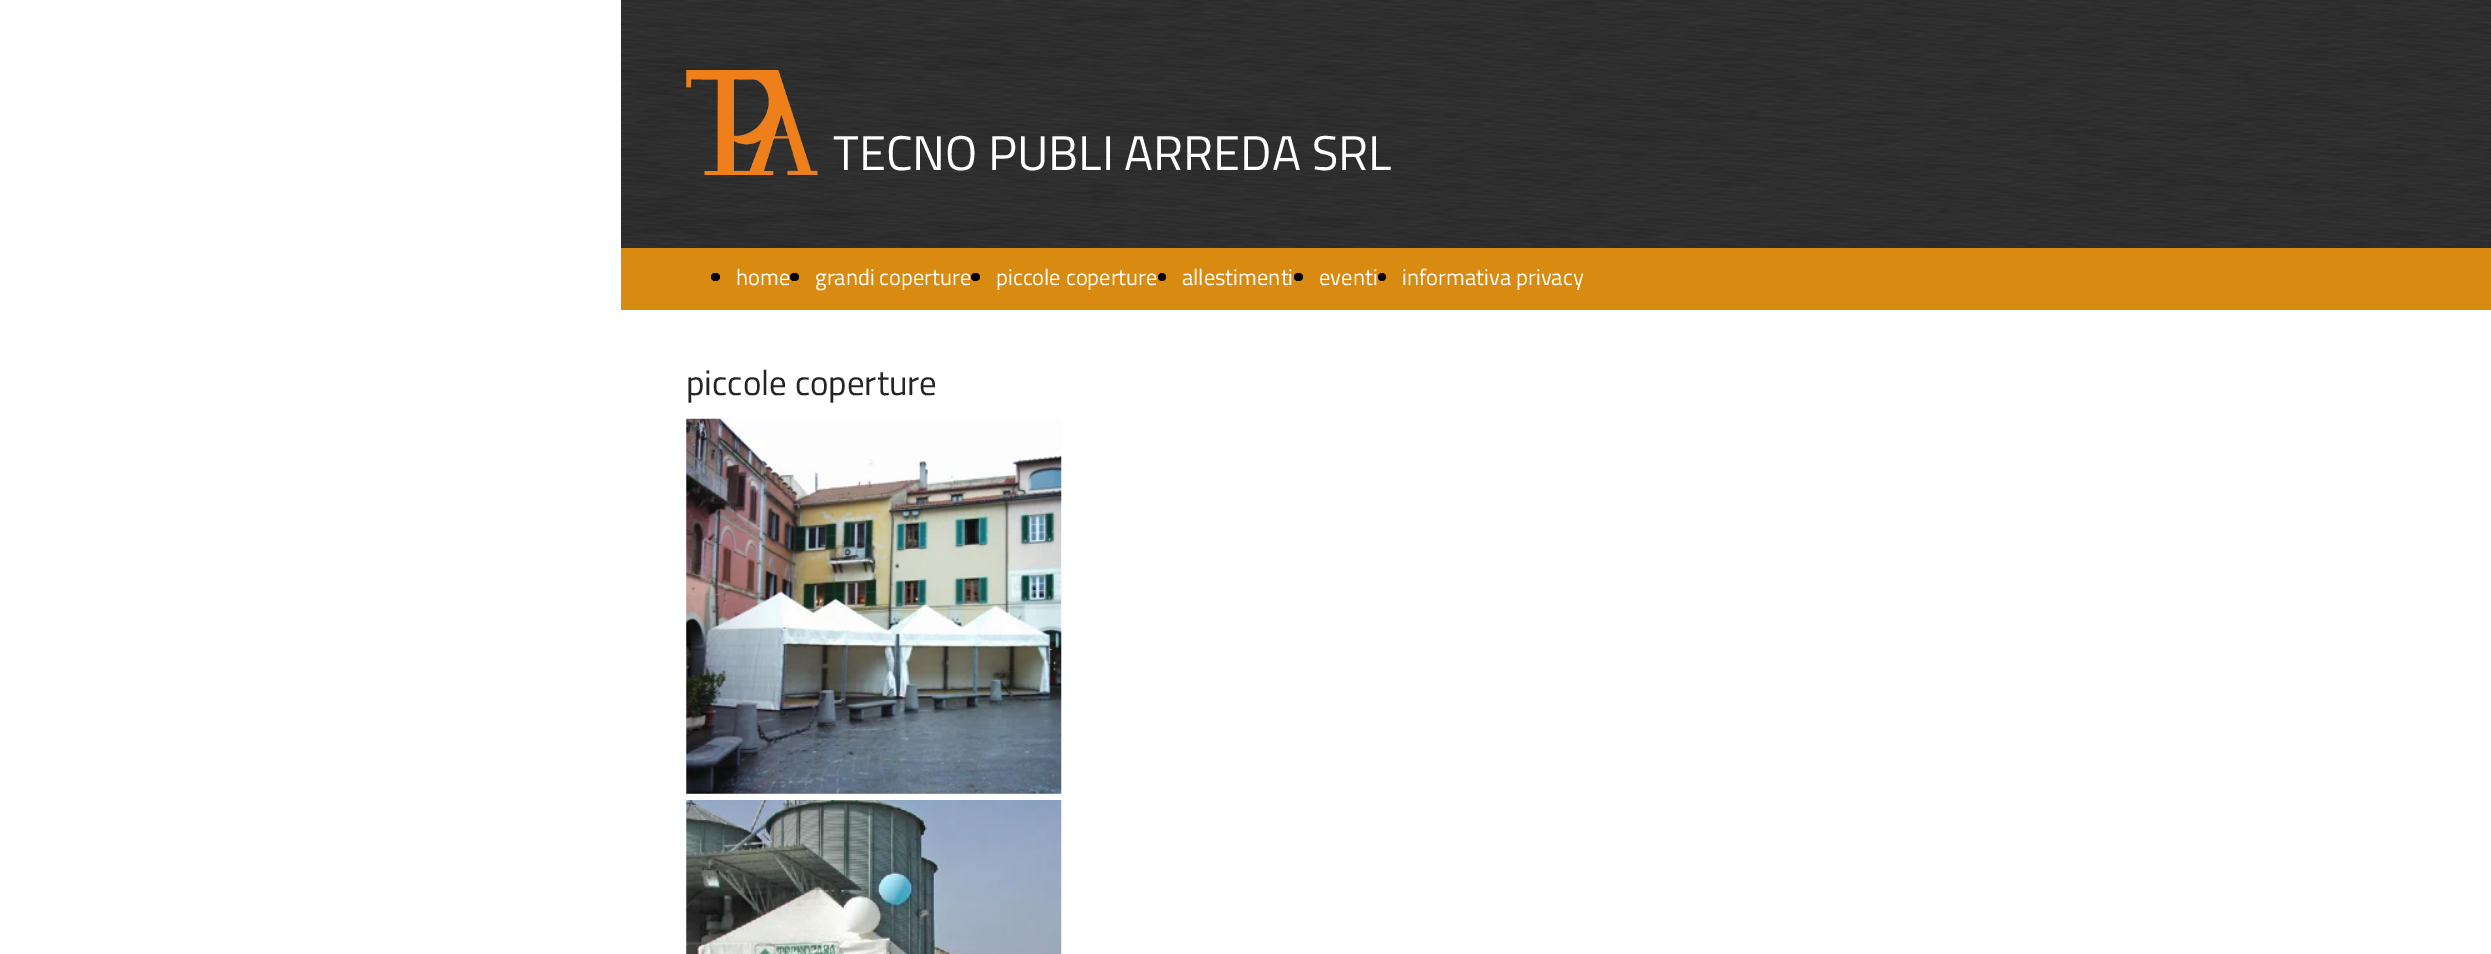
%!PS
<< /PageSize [2491 954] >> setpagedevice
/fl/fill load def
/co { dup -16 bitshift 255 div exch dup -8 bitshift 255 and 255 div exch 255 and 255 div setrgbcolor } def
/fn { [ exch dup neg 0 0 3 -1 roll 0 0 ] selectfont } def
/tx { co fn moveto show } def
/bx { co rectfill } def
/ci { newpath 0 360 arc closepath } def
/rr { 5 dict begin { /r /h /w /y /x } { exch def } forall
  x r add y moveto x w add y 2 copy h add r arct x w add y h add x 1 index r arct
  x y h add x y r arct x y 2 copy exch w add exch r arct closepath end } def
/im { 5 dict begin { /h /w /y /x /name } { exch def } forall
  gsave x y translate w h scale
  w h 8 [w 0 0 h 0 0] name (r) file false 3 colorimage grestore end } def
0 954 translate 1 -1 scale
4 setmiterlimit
0 0 2491 954 16#FFFFFF bx
621 0 1870 248 16#313131 bx
(media/1.raw) 621 0 1870 248 im
(media/2.raw) 686 70 132 105 im
621 248 1870 62 16#D88B10 bx
16#000000 co
711 273 9 8 4 rr fl
790 273 9 8 4 rr fl
971 273 9 8 4 rr fl
1162 277 4 ci fl
1294 273 9 8 4 rr fl
1382 277 4 ci fl
(media/3.raw) 686 418 376 376 im
(media/4.raw) 686 800 376 154 im
(TECNO PUBLI ARREDA SRL) 833 170 /TitilliumWeb-Regular 48.75 16#FFFFFF tx
(home) 736 285 /TitilliumWeb-Regular 22.5 16#FFFFFF tx
(grandi coperture) 815 285 /TitilliumWeb-Regular 22.5 16#FFFFFF tx
(piccole coperture) 996 285 /TitilliumWeb-Regular 22.5 16#FFFFFF tx
(allestimenti) 1182 285 /TitilliumWeb-Regular 22.5 16#FFFFFF tx
(eventi) 1319 285 /TitilliumWeb-Regular 22.5 16#FFFFFF tx
(informativa privacy) 1402 285 /TitilliumWeb-Regular 22.5 16#FFFFFF tx
(piccole coperture) 686 395 /TitilliumWeb-Regular 35 16#242424 tx
showpage
